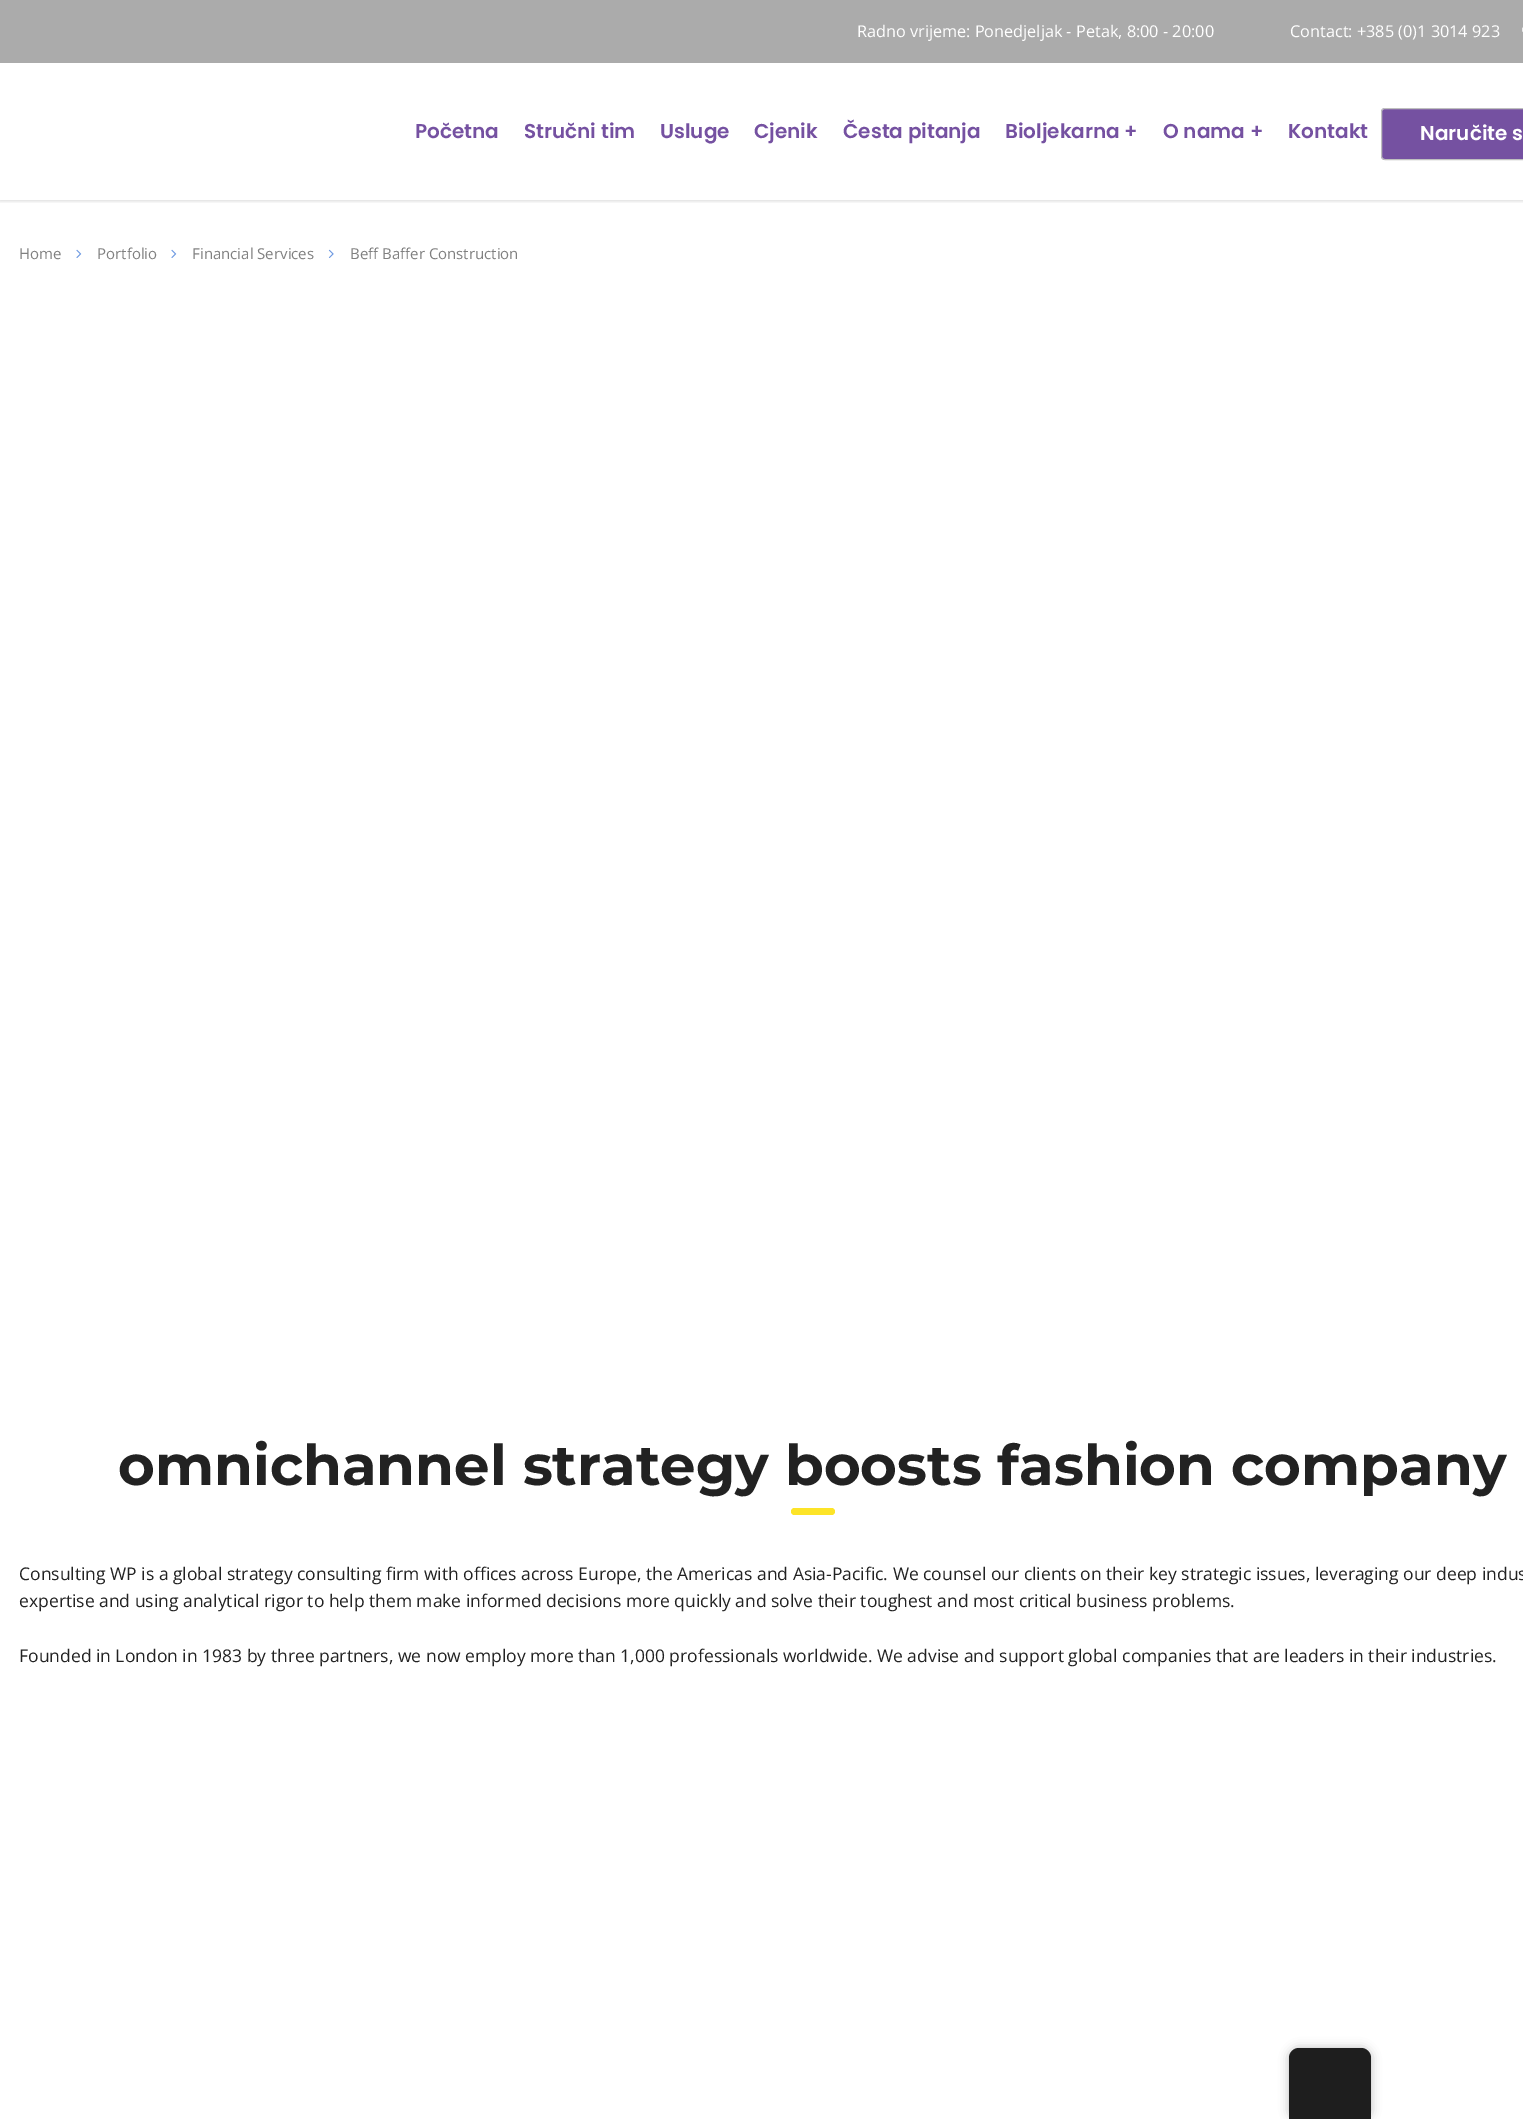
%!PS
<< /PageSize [1523 2119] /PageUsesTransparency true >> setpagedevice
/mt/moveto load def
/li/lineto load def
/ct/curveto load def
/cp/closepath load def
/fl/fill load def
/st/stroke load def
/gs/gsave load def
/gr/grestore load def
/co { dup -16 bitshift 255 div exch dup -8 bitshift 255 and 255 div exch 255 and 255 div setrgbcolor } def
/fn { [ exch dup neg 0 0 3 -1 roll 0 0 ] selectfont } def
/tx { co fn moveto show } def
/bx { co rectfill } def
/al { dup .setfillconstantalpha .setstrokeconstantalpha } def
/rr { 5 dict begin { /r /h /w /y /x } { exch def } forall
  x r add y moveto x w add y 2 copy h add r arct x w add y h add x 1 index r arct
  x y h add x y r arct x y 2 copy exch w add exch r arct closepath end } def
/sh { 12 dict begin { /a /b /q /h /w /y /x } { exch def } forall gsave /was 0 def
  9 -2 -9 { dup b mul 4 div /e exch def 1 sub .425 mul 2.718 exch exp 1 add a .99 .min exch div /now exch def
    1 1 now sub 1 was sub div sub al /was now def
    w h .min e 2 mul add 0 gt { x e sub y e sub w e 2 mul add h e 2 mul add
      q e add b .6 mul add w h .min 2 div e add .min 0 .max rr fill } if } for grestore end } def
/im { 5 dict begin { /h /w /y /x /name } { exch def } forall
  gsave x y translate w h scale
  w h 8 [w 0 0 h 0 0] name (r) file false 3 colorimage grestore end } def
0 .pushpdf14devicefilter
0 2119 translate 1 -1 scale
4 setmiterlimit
0 0 1523 2119 16#FFFFFF bx
gs
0 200 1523 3 rectclip
16#000000 co
0 64 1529 137 0 2 .15 sh
gr
0 0 1523 63 16#ABABAB bx
(media/1.raw) 1522 27 1 5 im
16#7551A1 co
1385 108 mt 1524 108 li 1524 160 li 1385 160 li 1383 160 1381 158 1381 156 ct 1381 112 li 1381 110 1383 108 1385 108 ct cp fl
16#BFBFBF co
1381.5 108.5 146 51 3.5 rr st
(media/2.raw) 76 249 6 9 im
(media/2.raw) 171 249 6 9 im
(media/3.raw) 328 249 6 9 im
16#FDE428 co
791 1508 44 7 3.5 rr fl
16#000000 co
1289 2048 82 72 10 5 .25 sh
16#1E1E1E co
1299 2048 mt 1361 2048 li 1366.5 2048 1371 2052.5 1371 2058 ct 1371 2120 li 1289 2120 li 1289 2058 li 1289 2052.5 1293.5 2048 1299 2048 ct cp fl
(Radno vrijeme: Ponedjeljak - Petak, 8:00 - 20:00) 857 37 /OpenSans-Regular 16.25 16#FFFFFF tx
(Contact: +385 \(0\)1 3014 923) 1290 37 /OpenSans-Regular 16.25 16#FFFFFF tx
(Početna) 415 138 /Poppins-SemiBold 20 16#7551A1 tx
(Stručni tim) 524 138 /Poppins-SemiBold 20 16#7551A1 tx
(Usluge) 660 138 /Poppins-SemiBold 20 16#7551A1 tx
(Cjenik) 754 138 /Poppins-SemiBold 20 16#7551A1 tx
(Česta pitanja) 843 138 /Poppins-SemiBold 20 16#7551A1 tx
(Bioljekarna +) 1005 138 /Poppins-SemiBold 20 16#7551A1 tx
(O nama +) 1163 138 /Poppins-SemiBold 20 16#7551A1 tx
(Kontakt) 1288 138 /Poppins-SemiBold 20 16#7551A1 tx
(Naručite s) 1420 140 /Poppins-SemiBold 20 16#FFFFFF tx
(Home) 19 259 /OpenSans-Regular 15 16#808080 tx
(Portfolio) 97 259 /OpenSans-Regular 15 16#808080 tx
(Financial Services) 192 259 /OpenSans-Regular 15 16#808080 tx
(Beff Baffer Construction) 350 259 /OpenSans-Regular 15 16#808080 tx
(omnichannel strategy boosts fashion company) 118 1485 /Montserrat-Bold 56.25 16#222222 tx
(Consulting WP is a global strategy consulting firm with offices across Europe, the Americas and Asia-Pacific. We counsel our clients on their key strategic issues, leveraging our deep indus) 19 1580 /OpenSans-Regular 17.5 16#222222 tx
(expertise and using analytical rigor to help them make informed decisions more quickly and solve their toughest and most critical business problems.) 19 1607 /OpenSans-Regular 17.5 16#222222 tx
(Founded in London in 1983 by three partners, we now employ more than 1,000 professionals worldwide. We advise and support global companies that are leaders in their industries.) 19 1662 /OpenSans-Regular 17.5 16#222222 tx
.poppdf14devicefilter showpage
